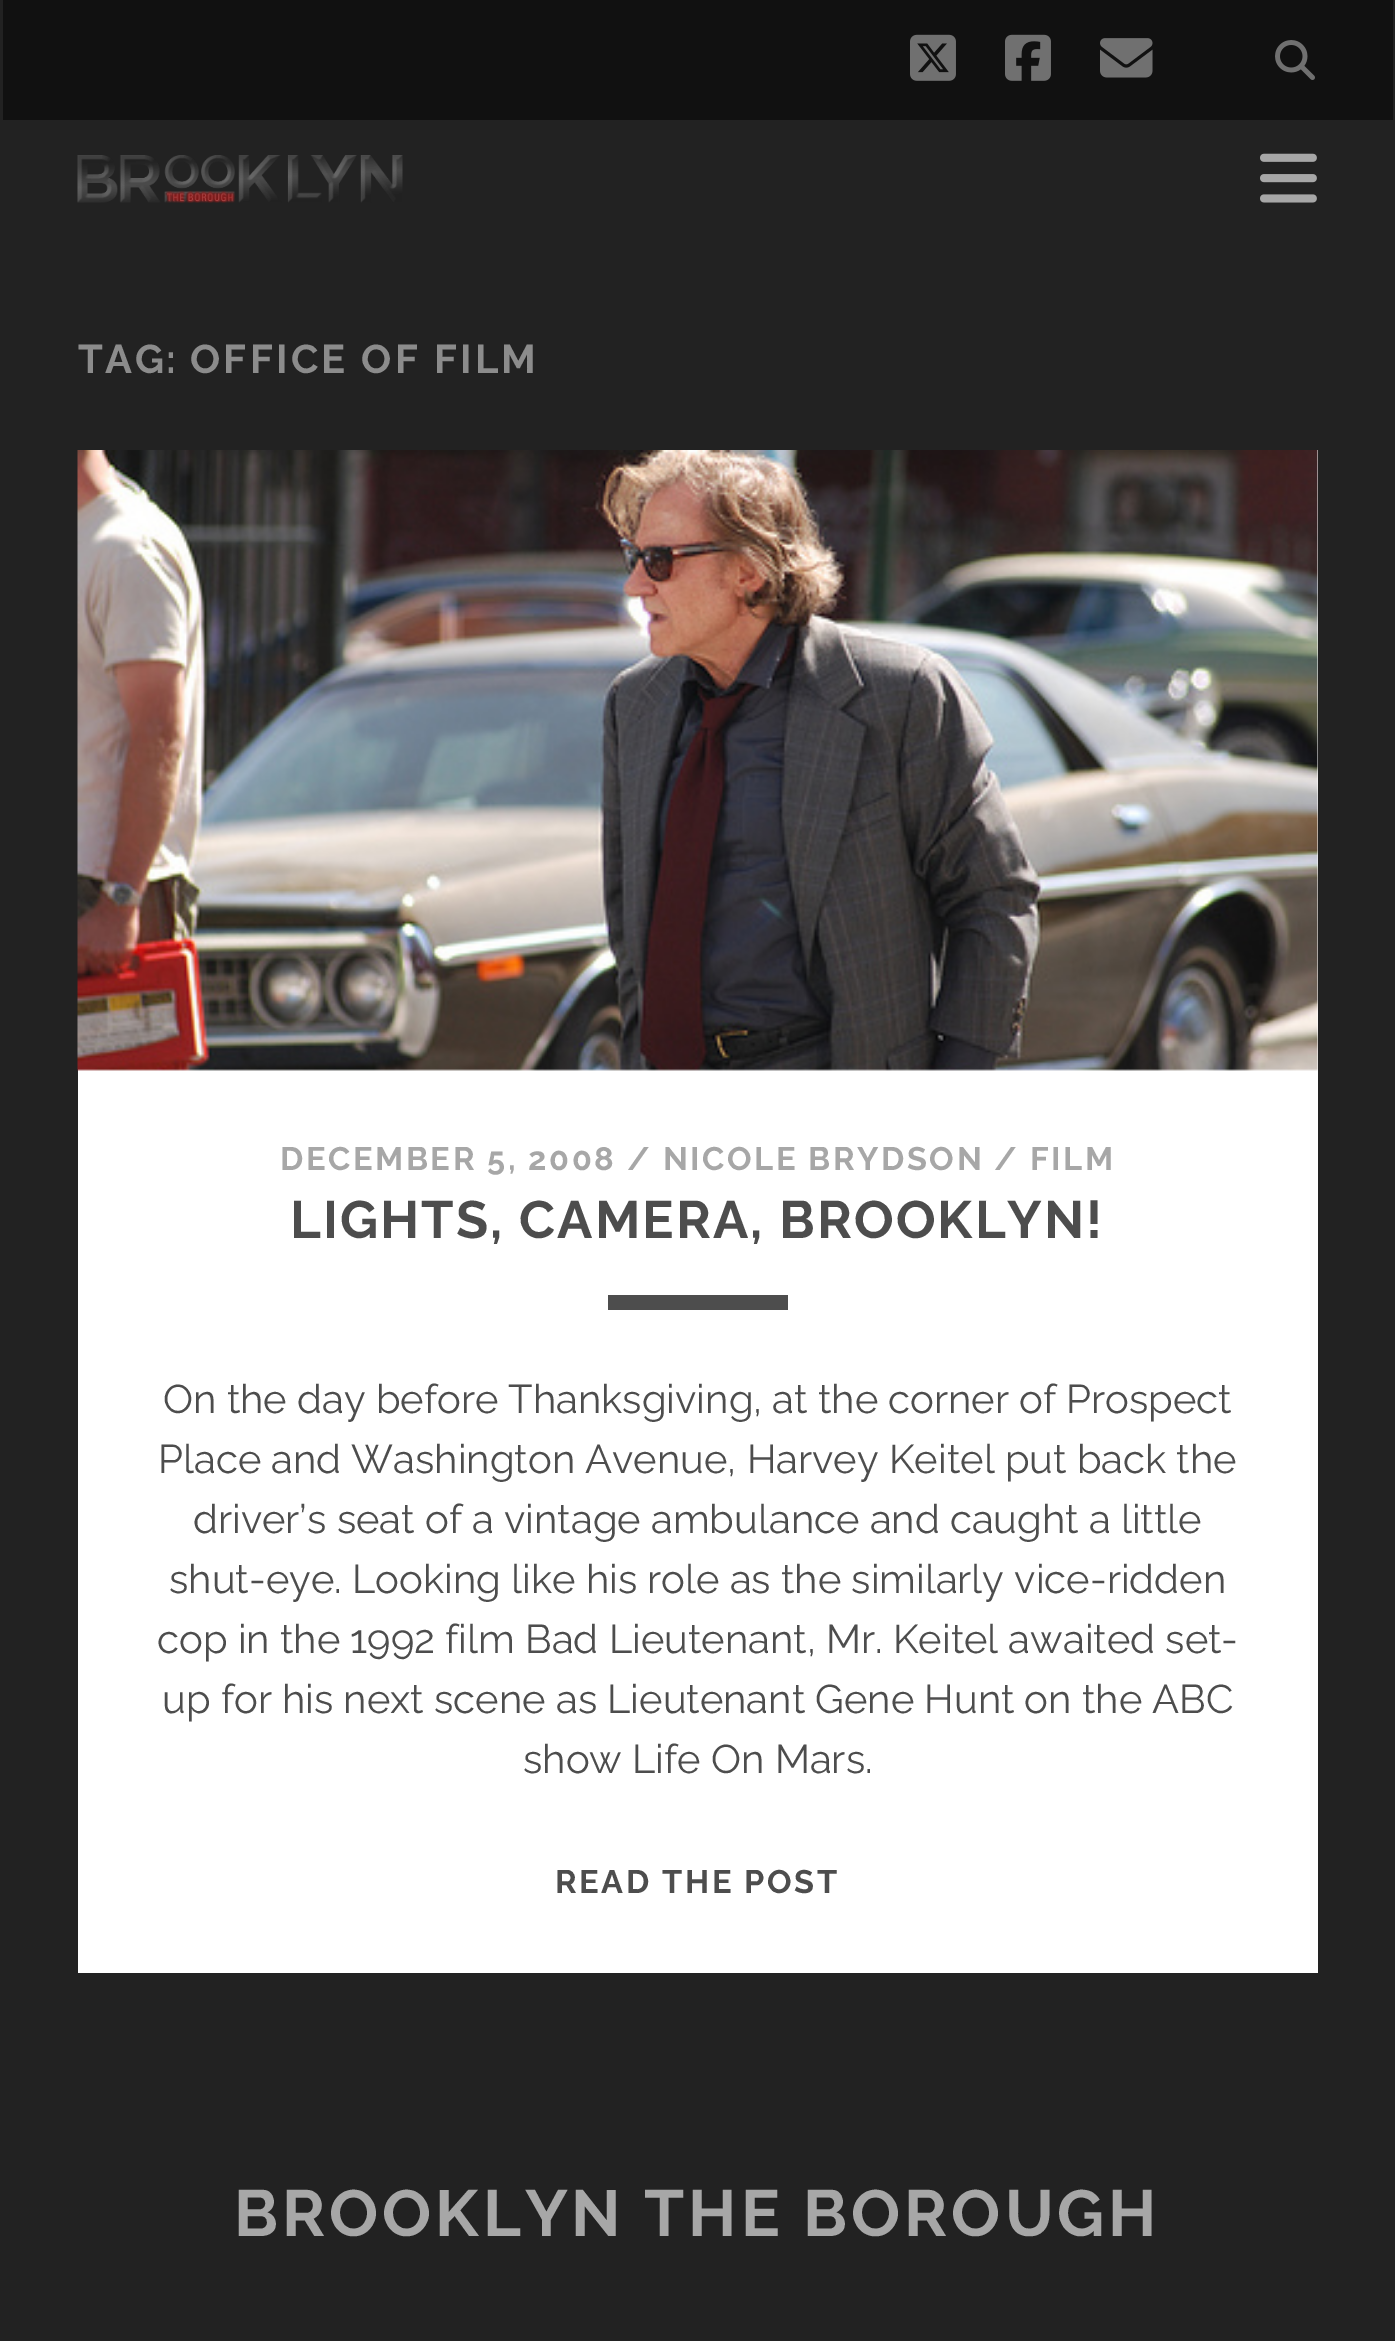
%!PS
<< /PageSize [1395 2341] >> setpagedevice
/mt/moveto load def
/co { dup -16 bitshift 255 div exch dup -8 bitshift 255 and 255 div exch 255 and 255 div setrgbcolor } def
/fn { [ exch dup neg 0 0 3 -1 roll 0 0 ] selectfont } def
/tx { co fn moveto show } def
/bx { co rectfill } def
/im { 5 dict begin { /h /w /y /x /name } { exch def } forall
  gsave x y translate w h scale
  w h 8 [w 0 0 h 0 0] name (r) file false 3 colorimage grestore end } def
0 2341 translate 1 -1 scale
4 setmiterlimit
0 0 1395 2341 16#222222 bx
3 0 1390 120 16#111111 bx
(media/1.raw) 910 34 46 47 im
(media/2.raw) 1005 34 46 47 im
(media/3.raw) 1100 38 53 40 im
(media/4.raw) 1275 40 40 40 im
(media/5.raw) 77 155 326 48 im
(media/6.raw) 1260 153 57 50 im
78 450 1240 1523 16#FFFFFF bx
(media/7.raw) 77 450 1241 621 im
608 1295 180 15 16#4D4D4D bx
/Raleway-Bold 40 fn
16#8C8C8C co
78 373 mt 2.5 0 (TAG:) ashow
190 373 mt 3.25 0 (OFFICE OF FILM) ashow
/Raleway-Bold 32.5 fn
16#A7A7A7 co
280 1170 mt 2.6 0 (DECEMBER 5, 2008 / NICOLE BRYDSON / FILM) ashow
/Raleway-Bold 52.5 fn
16#4D4D4D co
290 1238 mt 2.1 0 (LIGHTS, CAMERA, BROOKLYN!) ashow
(On the day before Thanksgiving, at the corner of Prospect) 163 1413 /Raleway-Regular 40 16#4D4D4D tx
(Place and Washington Avenue, Harvey Keitel put back the) 158 1473 /Raleway-Regular 40 16#4D4D4D tx
(driver’s seat of a vintage ambulance and caught a little) 193 1533 /Raleway-Regular 40 16#4D4D4D tx
(shut-eye. Looking like his role as the similarly vice-ridden) 169 1593 /Raleway-Regular 40 16#4D4D4D tx
(cop in the 1992 film Bad Lieutenant, Mr. Keitel awaited set-) 157 1653 /Raleway-Regular 40 16#4D4D4D tx
(up for his next scene as Lieutenant Gene Hunt on the ABC) 162 1713 /Raleway-Regular 40 16#4D4D4D tx
(show Life On Mars.) 523 1773 /Raleway-Regular 40 16#4D4D4D tx
/Raleway-Bold 32.5 fn
555 1893 mt 2.6 0 (READ THE POST) ashow
/Raleway-Bold 65 fn
16#A7A7A7 co
234 2236 mt 3.9 0 (BROOKLYN THE BOROUGH) ashow
showpage
